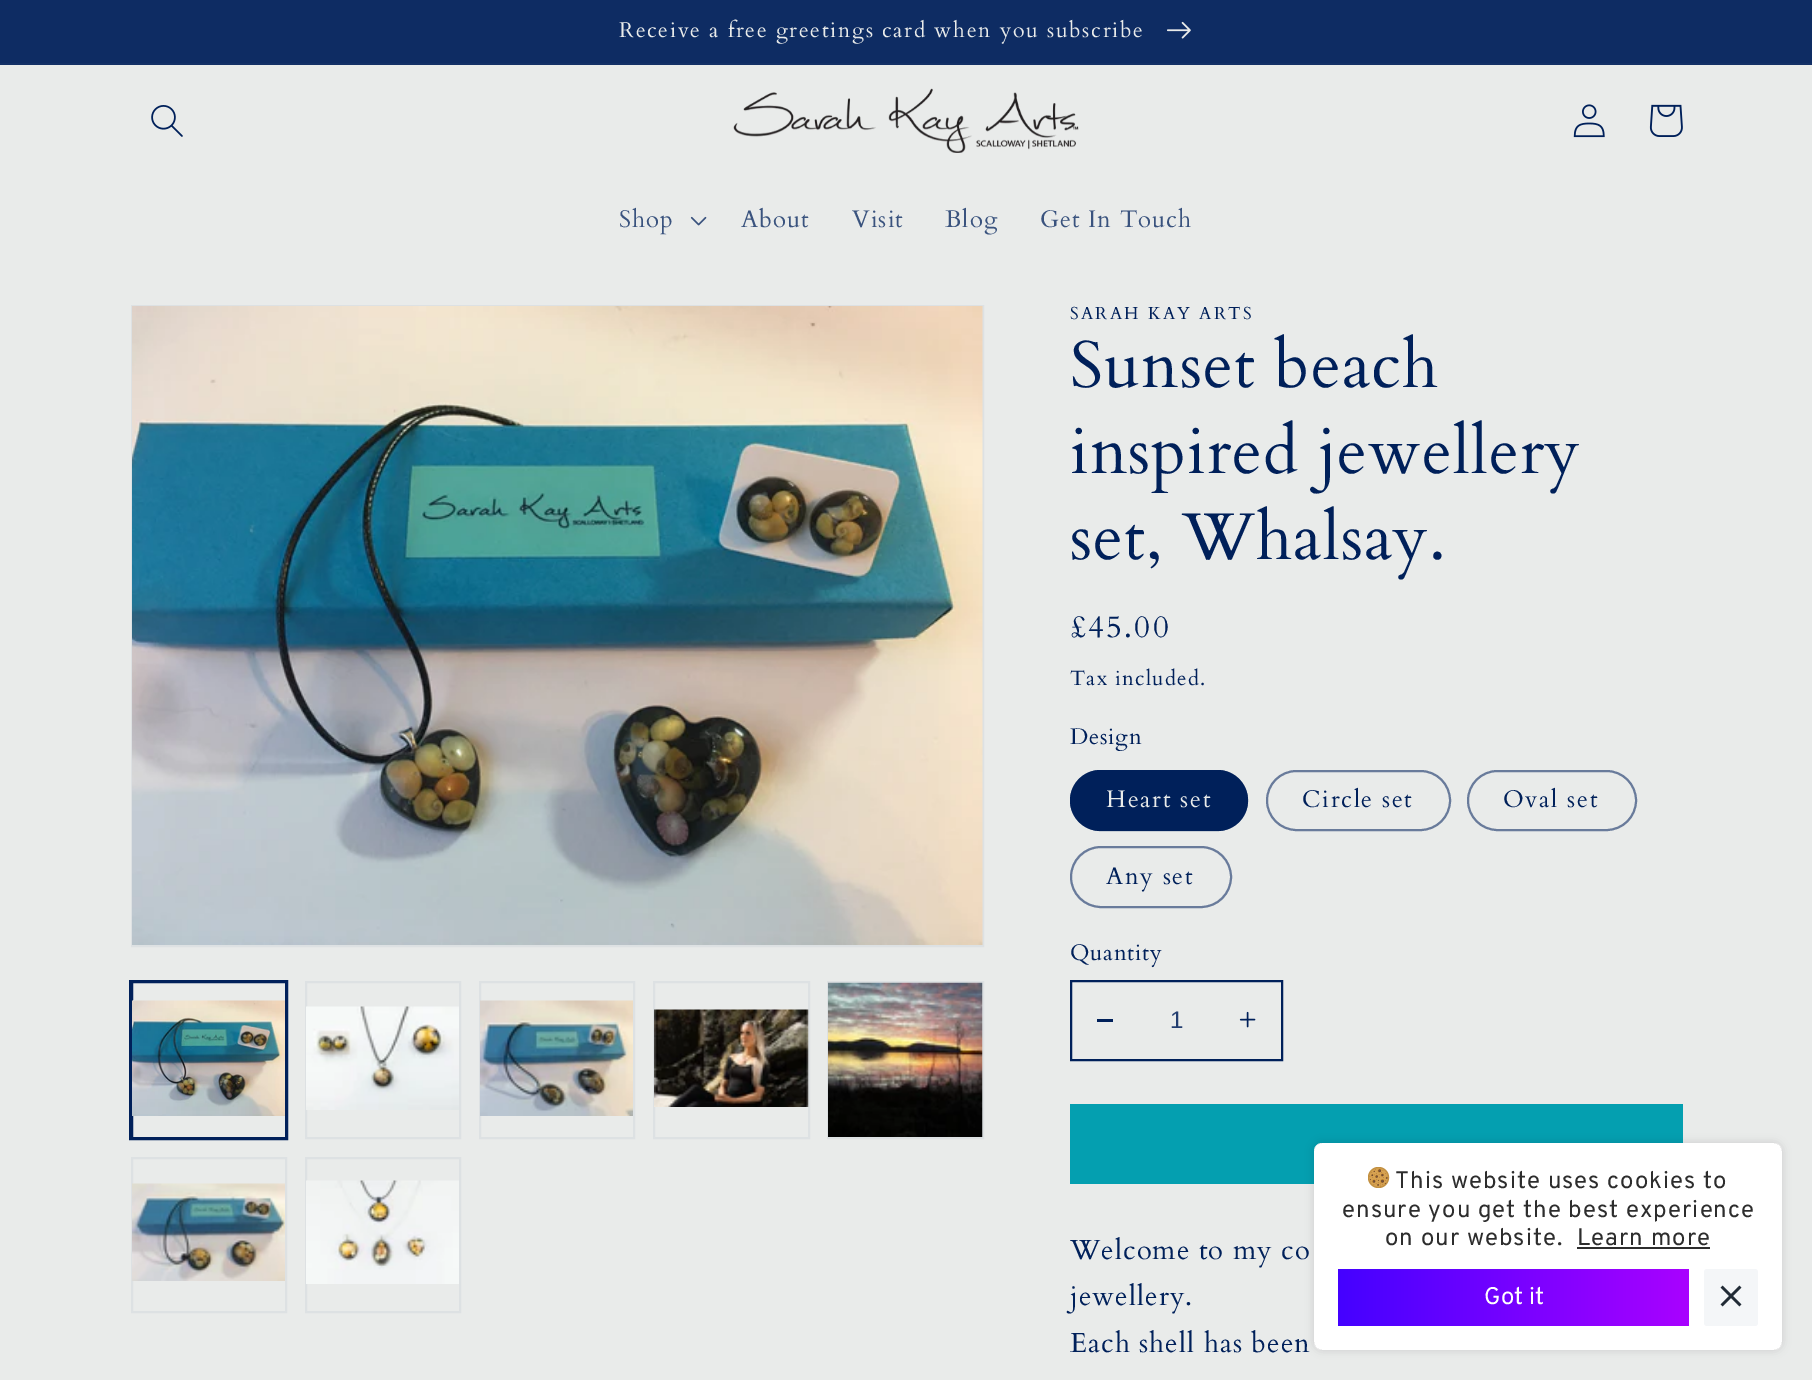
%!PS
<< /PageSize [1812 1380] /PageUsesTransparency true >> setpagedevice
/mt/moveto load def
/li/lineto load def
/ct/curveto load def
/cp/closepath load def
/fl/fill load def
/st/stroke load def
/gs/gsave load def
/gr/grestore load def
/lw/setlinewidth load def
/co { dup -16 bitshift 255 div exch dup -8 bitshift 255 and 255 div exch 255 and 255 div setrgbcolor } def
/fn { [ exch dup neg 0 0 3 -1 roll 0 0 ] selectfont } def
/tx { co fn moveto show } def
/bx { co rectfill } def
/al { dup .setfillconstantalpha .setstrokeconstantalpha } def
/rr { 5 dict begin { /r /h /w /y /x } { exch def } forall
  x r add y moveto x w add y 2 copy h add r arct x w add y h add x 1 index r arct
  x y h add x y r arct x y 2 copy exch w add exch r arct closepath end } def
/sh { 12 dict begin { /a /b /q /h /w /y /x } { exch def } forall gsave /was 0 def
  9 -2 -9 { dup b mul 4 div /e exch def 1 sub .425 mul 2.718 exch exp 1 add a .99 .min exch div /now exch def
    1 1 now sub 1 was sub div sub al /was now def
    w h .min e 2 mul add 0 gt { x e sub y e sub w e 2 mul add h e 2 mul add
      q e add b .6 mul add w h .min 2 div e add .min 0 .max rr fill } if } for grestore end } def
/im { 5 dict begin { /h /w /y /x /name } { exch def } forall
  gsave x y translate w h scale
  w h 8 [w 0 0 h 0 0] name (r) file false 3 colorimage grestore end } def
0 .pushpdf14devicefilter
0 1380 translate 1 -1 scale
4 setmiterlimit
0 0 1812 1380 16#E9EBEA bx
0 63 1812 2 16#133066 bx
0 0 1812 63 16#0E2C63 bx
(media/1.raw) 1167 21 24 18 im
(media/2.raw) 151 105 32 32 im
(media/3.raw) 733 88 346 65 im
(media/4.raw) 1573 104 32 34 im
(media/5.raw) 1649 104 34 33 im
(media/6.raw) 690 216 17 10 im
16#DDE1E3 co
2 lw
132 306 851 640 rectstroke
(media/7.raw) 132 306 851 639 im
16#00205A co
130 981 157 158 rectstroke
132 982 154 156 rectstroke
(media/8.raw) 132 1000 153 116 im
16#DDE1E3 co
306 982 154 156 rectstroke
(media/9.raw) 306 1006 153 104 im
480 982 154 156 rectstroke
(media/10.raw) 480 1000 153 116 im
654 982 155 156 rectstroke
(media/11.raw) 654 1009 155 98 im
828 982 155 156 rectstroke
(media/12.raw) 828 982 155 155 im
132 1158 154 154 rectstroke
(media/13.raw) 132 1183 153 98 im
306 1158 154 154 rectstroke
(media/14.raw) 306 1180 153 104 im
16#00205A co
1070 770 178 61 30.5 rr fl
0.55 al
1071 771 176 59 29.5 rr st
1 al
16#697B9B co
1267 771 183 59 29.5 rr st
1468 771 168 59 29.5 rr st
1071 847 160 60 30 rr st
1097 1019 16 3 16#00205A bx
(media/15.raw) 1239 1011 17 17 im
1071 981 211 79 rectstroke
1070 1104 613 80 16#049FB0 bx
16#FFFFFF co
1314 1143 468 207 8 rr fl
gs
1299 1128 mt 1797 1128 li 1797 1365 li 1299 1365 li cp 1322 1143 mt 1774 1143 li 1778.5 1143 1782 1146.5 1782 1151 ct 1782 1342 li 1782 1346.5 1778.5 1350 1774 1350 ct 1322 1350 li 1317.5 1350 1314 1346.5 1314 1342 ct 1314 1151 li 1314 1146.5 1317.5 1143 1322 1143 ct cp eoclip newpath
16#000000 co
1314 1143 468 207 8 4.5 .12 sh
gr
(media/16.raw) 1368 1167 22 21 im
1577 1247 133 2 16#2D2D2D bx
gs 1338 1269 351 57 3 rr clip newpath
<< /ShadingType 2 /ColorSpace /DeviceRGB /Coords [1338 1298 1689 1298] /Extend [true true] /Function << /FunctionType 2 /Domain [0 1] /C0 [.267 .004 1] /C1 [.663 .004 1] /N 1 >> >> shfill gr
16#F4F6F8 co
1704 1269 54 57 3 rr fl
(media/17.raw) 1720 1285 22 22 im
/Cardo-Regular 21.45 fn
16#E9EBEA co
619 37 mt 1.7 0 (Receive a free greetings card when you subscribe) ashow
/Cardo-Regular 24 fn
16#3A537E co
619 227 mt 1.05 0 (Shop) ashow
741 227 mt 1.05 0 (About) ashow
852 227 mt 1.05 0 (Visit) ashow
945 227 mt 1.05 0 (Blog) ashow
1040 227 mt 1.05 0 (Get In Touch) ashow
/Cardo-Regular 17.25 fn
16#00205A co
1070 319 mt 2.25 0 (SARAH KAY ARTS) ashow
/Cardo-Regular 66 fn
1070 387 mt 1 0 (Sunset beach) ashow
1070 473 mt 1 0 (inspired jewellery) ashow
1070 559 mt 1 0 (set, Whalsay.) ashow
/Cardo-Regular 31 fn
1070 637 mt 2.25 0 (£45.00) ashow
/Cardo-Regular 20.75 fn
1070 685 mt 1.25 0 (Tax included.) ashow
/Cardo-Regular 22.5 fn
1070 744 mt .75 0 (Design) ashow
/Cardo-Regular 24 fn
16#E9EBEA co
1106 807 mt 1.7 0 (Heart set) ashow
16#00205A co
1302 807 mt 1.7 0 (Circle set) ashow
1503 807 mt 1.7 0 (Oval set) ashow
1106 884 mt 1.7 0 (Any set) ashow
/Cardo-Regular 22.5 fn
1070 960 mt .75 0 (Quantity) ashow
(1) 1170 1028 /LiberationSans-Regular 24 16#233E70 tx
/Cardo-Regular 27.5 fn
16#00205A co
1070 1259 mt 1.05 0 (Welcome to my co) ashow
1070 1305 mt 1.05 0 (jewellery.) ashow
1070 1352 mt 1.05 0 (Each shell has been) ashow
/Overpass-Regular 24 fn
16#2D2D2D co
1395 1188 mt 1.05 0 (This website uses cookies to) ashow
1342 1217 mt 1.05 0 (ensure you get the best experience) ashow
1385 1245 mt 1.05 0 (on our website.) ashow
1577 1245 mt 1.05 0 (Learn more) ashow
(Got it) 1484 1304 /Overpass-Regular 24 16#FFFFFF tx
.poppdf14devicefilter showpage
